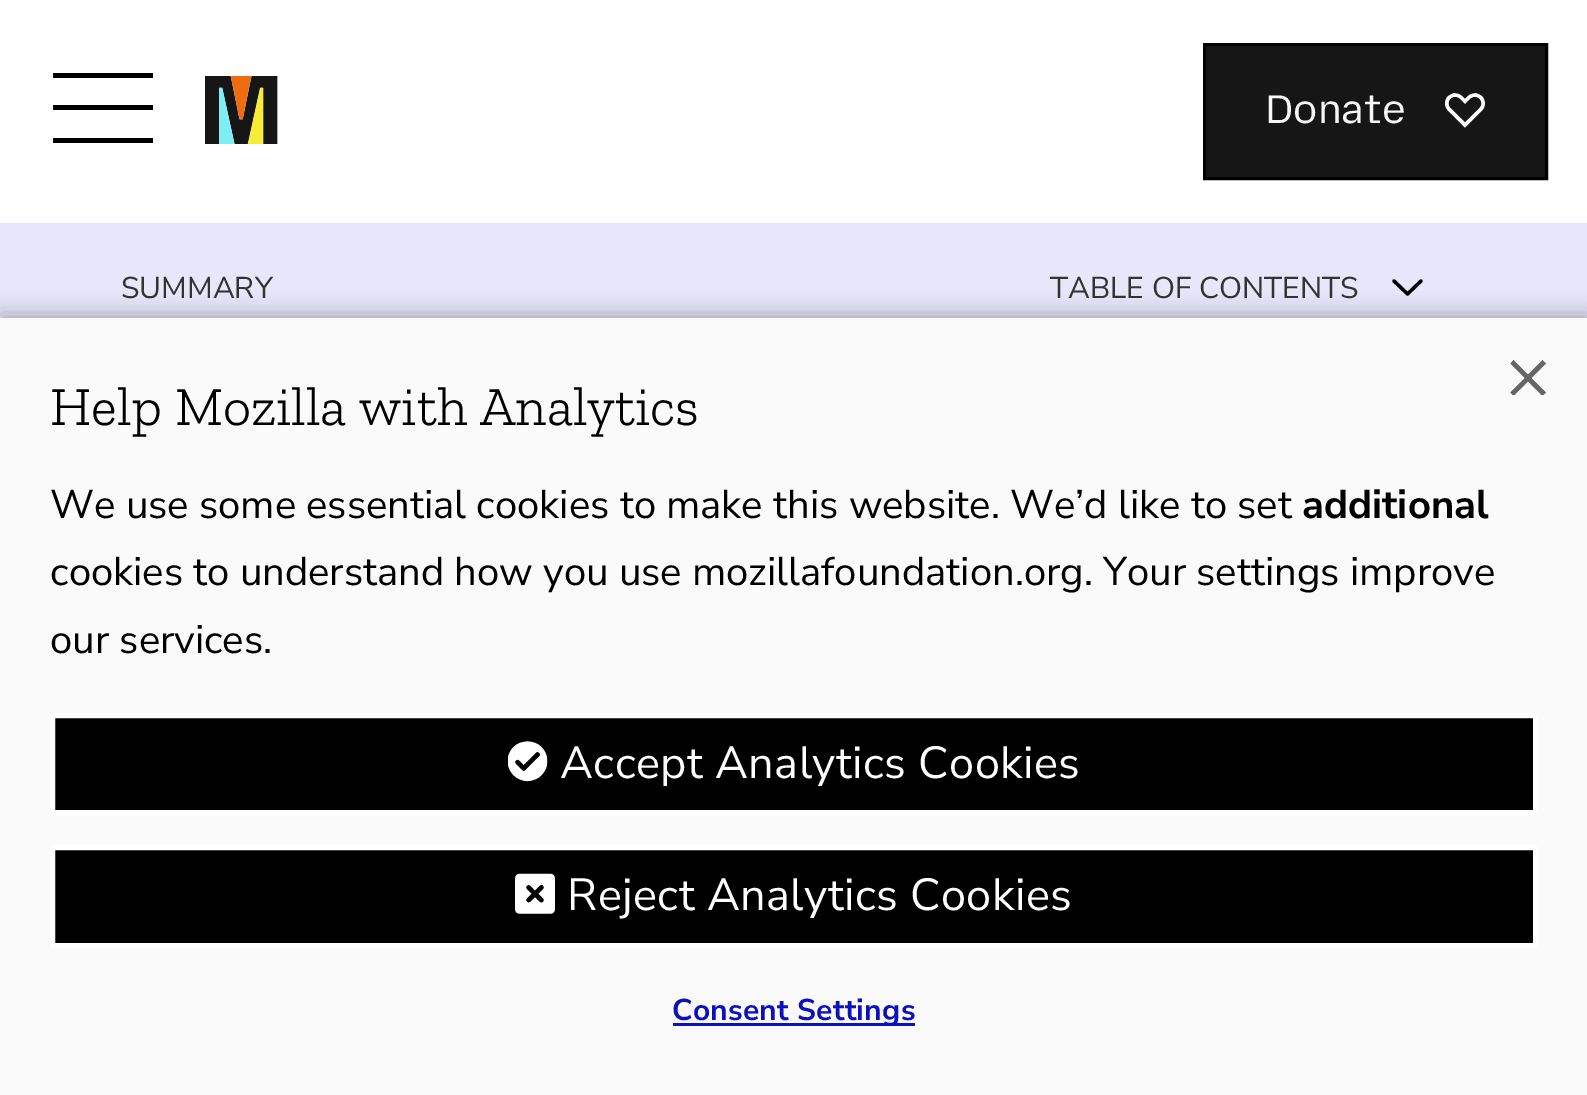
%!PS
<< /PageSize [1587 1095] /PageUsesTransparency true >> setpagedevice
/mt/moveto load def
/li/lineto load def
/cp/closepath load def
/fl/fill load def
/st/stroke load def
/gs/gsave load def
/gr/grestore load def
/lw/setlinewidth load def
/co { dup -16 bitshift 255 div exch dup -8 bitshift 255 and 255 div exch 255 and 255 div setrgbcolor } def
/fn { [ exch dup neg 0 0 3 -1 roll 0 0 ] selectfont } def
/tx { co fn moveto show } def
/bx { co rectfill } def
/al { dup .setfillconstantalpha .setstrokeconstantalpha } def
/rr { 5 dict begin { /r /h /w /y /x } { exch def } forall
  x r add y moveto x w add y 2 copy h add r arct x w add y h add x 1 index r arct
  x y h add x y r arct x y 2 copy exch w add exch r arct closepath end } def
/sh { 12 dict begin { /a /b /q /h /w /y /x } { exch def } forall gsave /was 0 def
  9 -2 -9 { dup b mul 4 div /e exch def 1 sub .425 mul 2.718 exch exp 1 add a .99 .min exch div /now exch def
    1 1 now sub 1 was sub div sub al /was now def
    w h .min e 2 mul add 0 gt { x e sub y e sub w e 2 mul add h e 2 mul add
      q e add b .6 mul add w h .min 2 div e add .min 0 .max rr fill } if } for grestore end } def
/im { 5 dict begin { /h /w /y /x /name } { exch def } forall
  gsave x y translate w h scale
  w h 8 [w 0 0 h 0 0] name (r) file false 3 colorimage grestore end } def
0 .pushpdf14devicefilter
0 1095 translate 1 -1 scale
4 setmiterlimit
0 0 1587 1095 16#FFFFFF bx
53 73 100 5 16#000000 bx
53 105 100 5 16#000000 bx
53 138 100 5 16#000000 bx
(media/1.raw) 205 76 73 68 im
16#161616 co
1204.5 44.5 mt 1546.5 44.5 li 1546.5 178.5 li 1204.5 178.5 li cp gs fl gr
16#000000 co
3 lw
st
(media/2.raw) 1445 93 40 35 im
0 223 1587 95 16#E7E7FC bx
16#000000 co
3.3 lw
1 setlinecap
1 setlinejoin
1394 281 mt 1407.5 294 li 1421 281 li st
0 313 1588 777 0 10 .25 sh
0 318 1587 777 16#FAFAFA bx
gs
1510 360 38 35 rectclip
16#666666 co
1510.5 392.5 mt 1542.5 360 li 1546 363.5 li 1513.5 396 li cp eofill
1546 392.5 mt 1513.5 360 li 1510.5 363.5 li 1542.5 396 li cp eofill
gr
16#000000 co
52.5 715.5 1483 97 2.5 rr gs fl gr
16#FFFFFF co
5 lw
0 setlinecap
0 setlinejoin
st
(media/3.raw) 508 741 40 41 im
16#000000 co
52.5 847.5 1483 98 2.5 rr gs fl gr
16#FFFFFF co
st
(media/4.raw) 515 873 40 41 im
673 1023 242 3 16#0D10BF bx
(Donate) 1265 123 /MozillaText-Regular 40 16#F7F7F7 tx
(SUMMARY) 121 298 /NunitoSans-Regular 30 16#333333 tx
(TABLE OF CONTENTS) 1050 298 /NunitoSans-Regular 30 16#333333 tx
(Help Mozilla with Analytics) 50 425 /ZillaSlab-Light 55 16#000000 tx
(We use some essential cookies to make this website. We’d like to set) 50 518 /NunitoSans-Regular 40 16#000000 tx
(additional) 1302 518 /NunitoSans-Bold 40 16#000000 tx
(cookies to understand how you use mozillafoundation.org. Your settings improve) 50 585 /NunitoSans-Regular 40 16#000000 tx
(our services.) 50 653 /NunitoSans-Regular 40 16#000000 tx
/NunitoSans-Regular 45 fn
16#FFFFFF co
560 778 mt .45 0 (Accept Analytics Cookies) ashow
567 910 mt .45 0 (Reject Analytics Cookies) ashow
/NunitoSans-Bold 30 fn
16#0D10BF co
672 1020 mt .25 0 (Consent Settings) ashow
.poppdf14devicefilter showpage
